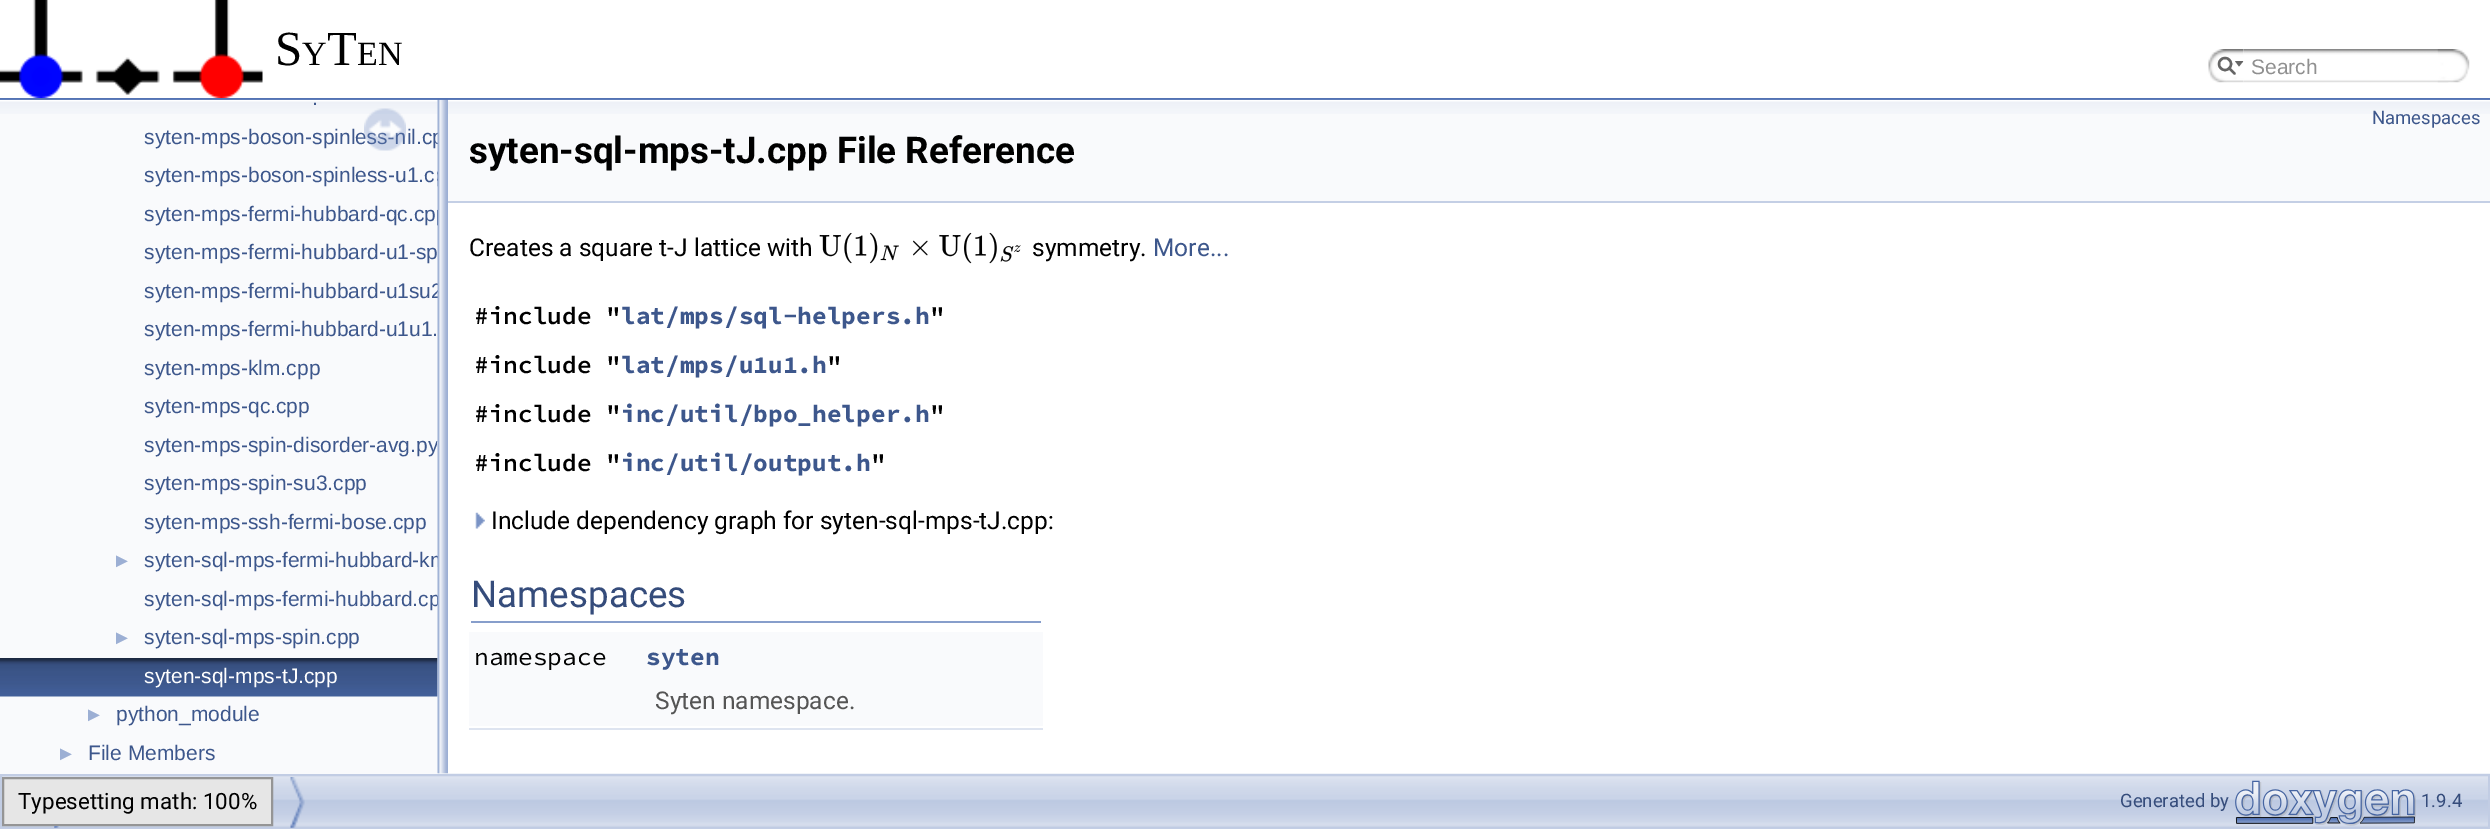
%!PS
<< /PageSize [2490 829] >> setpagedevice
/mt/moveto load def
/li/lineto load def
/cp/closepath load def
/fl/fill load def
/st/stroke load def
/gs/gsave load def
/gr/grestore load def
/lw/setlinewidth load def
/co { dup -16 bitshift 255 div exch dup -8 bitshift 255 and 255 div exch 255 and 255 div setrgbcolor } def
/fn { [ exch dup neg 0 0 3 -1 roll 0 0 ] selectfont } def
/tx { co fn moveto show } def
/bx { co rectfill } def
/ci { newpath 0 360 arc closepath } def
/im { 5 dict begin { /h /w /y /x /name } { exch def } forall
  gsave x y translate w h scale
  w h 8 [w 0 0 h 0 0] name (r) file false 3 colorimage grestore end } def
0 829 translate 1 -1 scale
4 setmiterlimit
0 0 2490 829 16#FFFFFF bx
0 98 2490 2 16#5373B4 bx
(media/1.raw) 0 0 263 98 im
(media/2.raw) 2208 49 36 34 im
16#656565 co
2.4 lw
2225 64 6 ci st
2235 61 mt 2239 66.5 li 2243.5 61 li cp fl
1 setlinecap
2229.5 68.5 mt 2234.5 73.5 li st
(media/3.raw) 2243 49 206 34 im
(media/4.raw) 2437 49 33 34 im
(media/12.raw) 2 773 2488 55 im
0 100 438 674 16#F9FAFC bx
(media/5.raw) 0 99 438 15 im
(media/6.raw) 0 658 438 39 im
448 114 2042 87 16#F9FAFC bx
(media/9.raw) 448 99 2042 15 im
448 201 2042 2 16#C4CFE5 bx
(media/10.raw) 819 232 202 32 im
(media/11.raw) 475 512 10 17 im
471 621 570 2 16#879ECB bx
469 632 574 49 16#F9FAFC bx
469 681 574 45 16#F9FAFC bx
469 728 574 2 16#DEE4F0 bx
16#C2CDE4 co
2 lw
0 setlinecap
1 775 2488 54 rectstroke
16#E6E6E6 co
3 778 mt 272 778 li 272 825 li 3 825 li cp gs fl gr
16#959595 co
st
(media/13.raw) 290 777 15 51 im
(media/14.raw) 2235 780 181 46 im
(media/15.raw) 54 826 6 2 im
(S) 275 65 /LiberationSerif-Regular 49 16#000000 tx
(Y) 302 65 /LiberationSerif-Regular 34 16#000000 tx
(T) 327 65 /LiberationSerif-Regular 49 16#000000 tx
(EN) 357 65 /LiberationSerif-Regular 34 16#000000 tx
(Search) 2251 74 /LiberationSans-Regular 21 16#909090 tx
(.) 312 105 /LiberationSans-Regular 21 16#3D578C tx
(syten-mps-boson-spinless-nil.cp) 144 144 /LiberationSans-Regular 21 16#3D578C tx
(syten-mps-boson-spinless-u1.c) 144 182 /LiberationSans-Regular 21 16#3D578C tx
(syten-mps-fermi-hubbard-qc.cp) 144 221 /LiberationSans-Regular 21 16#3D578C tx
(syten-mps-fermi-hubbard-u1-sp) 144 259 /LiberationSans-Regular 21 16#3D578C tx
(syten-mps-fermi-hubbard-u1su2) 144 298 /LiberationSans-Regular 21 16#3D578C tx
(syten-mps-fermi-hubbard-u1u1.) 144 336 /LiberationSans-Regular 21 16#3D578C tx
(syten-mps-klm.cpp) 144 375 /LiberationSans-Regular 21 16#3D578C tx
(syten-mps-qc.cpp) 144 413 /LiberationSans-Regular 21 16#3D578C tx
(syten-mps-spin-disorder-avg.py) 144 452 /LiberationSans-Regular 21 16#3D578C tx
(syten-mps-spin-su3.cpp) 144 490 /LiberationSans-Regular 21 16#3D578C tx
(syten-mps-ssh-fermi-bose.cpp) 144 529 /LiberationSans-Regular 21 16#3D578C tx
(►) 112 567 /LiberationSans-Regular 20 16#9CAFD4 tx
(syten-sql-mps-fermi-hubbard-kn) 144 567 /LiberationSans-Regular 21 16#3D578C tx
(syten-sql-mps-fermi-hubbard.cp) 144 606 /LiberationSans-Regular 21 16#3D578C tx
(►) 112 644 /LiberationSans-Regular 20 16#9CAFD4 tx
(syten-sql-mps-spin.cpp) 144 644 /LiberationSans-Regular 21 16#3D578C tx
(syten-sql-mps-tJ.cpp) 144 683 /LiberationSans-Regular 21 16#FFFFFF tx
(►) 84 721 /LiberationSans-Regular 20 16#9CAFD4 tx
(python_module) 116 721 /LiberationSans-Regular 21 16#3D578C tx
(►) 56 760 /LiberationSans-Regular 20 16#9CAFD4 tx
(File Members) 88 760 /LiberationSans-Regular 21 16#3D578C tx
(media/7.raw) 364 108 42 43 im
(media/8.raw) 437 99 11 675 im
(Namespaces) 2372 124 /Roboto-Regular 18.5 16#3D578C tx
(syten-sql-mps-tJ.cpp File Reference) 469 163 /Roboto-Bold 36.75 16#000000 tx
(Creates a square t-J lattice with) 469 256 /Roboto-Regular 24.5 16#000000 tx
(symmetry.) 1032 256 /Roboto-Regular 24.5 16#000000 tx
(More...) 1153 256 /Roboto-Regular 24.5 16#3D578C tx
(#include ") 474 324 /SourceCodePro-SemiBold 24.5 16#000000 tx
(lat/mps/sql-helpers.h) 621 324 /SourceCodePro-Bold 24.5 16#3D578C tx
(") 930 324 /SourceCodePro-SemiBold 24.5 16#000000 tx
(#include ") 474 373 /SourceCodePro-SemiBold 24.5 16#000000 tx
(lat/mps/u1u1.h) 621 373 /SourceCodePro-Bold 24.5 16#3D578C tx
(") 827 373 /SourceCodePro-SemiBold 24.5 16#000000 tx
(#include ") 474 422 /SourceCodePro-SemiBold 24.5 16#000000 tx
(inc/util/bpo_helper.h) 621 422 /SourceCodePro-Bold 24.5 16#3D578C tx
(") 930 422 /SourceCodePro-SemiBold 24.5 16#000000 tx
(#include ") 474 471 /SourceCodePro-SemiBold 24.5 16#000000 tx
(inc/util/output.h) 621 471 /SourceCodePro-Bold 24.5 16#3D578C tx
(") 871 471 /SourceCodePro-SemiBold 24.5 16#000000 tx
(Include dependency graph for syten-sql-mps-tJ.cpp:) 491 529 /Roboto-Regular 24.5 16#000000 tx
(Namespaces) 471 607 /Roboto-Regular 36.75 16#354C7B tx
(namespace) 474 665 /SourceCodePro-Regular 24.5 16#000000 tx
(syten) 646 665 /SourceCodePro-Bold 24.5 16#3D578C tx
(Syten namespace.) 655 709 /Roboto-Regular 24.5 16#555555 tx
(Typesetting math: 100%) 18 809 /Roboto-Regular 22.4 16#000000 tx
(Generated by) 2120 807 /Roboto-Regular 18.5 16#354C7B tx
(1.9.4) 2421 807 /Roboto-Regular 18.5 16#354C7B tx
showpage
